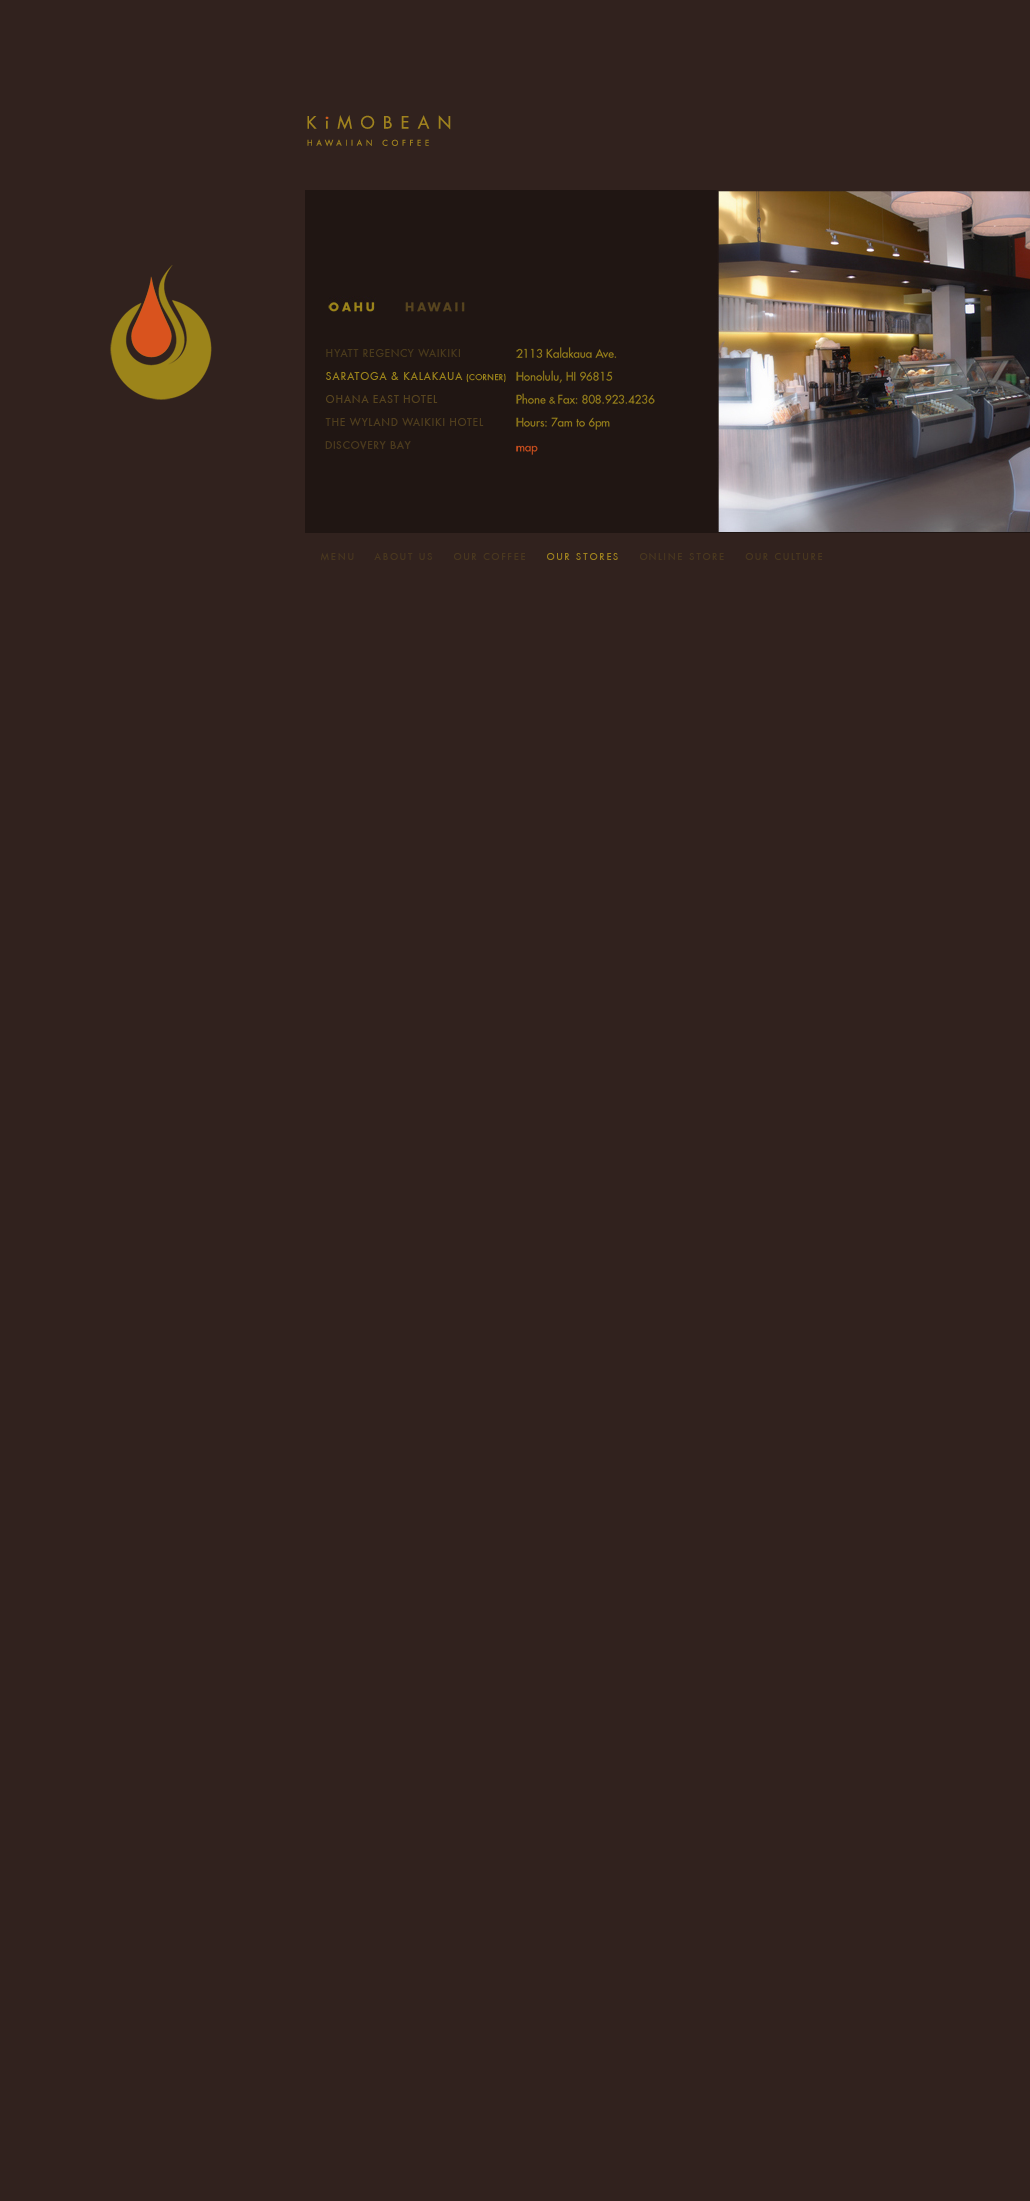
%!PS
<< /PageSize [1030 2201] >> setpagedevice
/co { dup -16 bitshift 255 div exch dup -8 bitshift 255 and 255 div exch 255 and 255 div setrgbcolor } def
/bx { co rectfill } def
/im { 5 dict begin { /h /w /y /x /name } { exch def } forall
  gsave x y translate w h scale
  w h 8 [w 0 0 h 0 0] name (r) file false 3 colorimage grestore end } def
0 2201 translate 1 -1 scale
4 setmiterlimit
0 0 1030 2201 16#31221E bx
(media/1.raw) 307 115 144 32 im
(media/2.raw) 110 265 102 135 im
305 190 725 343 16#201613 bx
(media/3.raw) 716 190 314 342 im
(media/4.raw) 328 296 48 16 im
(media/5.raw) 405 302 60 10 im
(media/6.raw) 326 348 134 9 im
(media/7.raw) 326 372 180 11 im
(media/8.raw) 326 395 112 8 im
(media/9.raw) 325 417 159 9 im
(media/10.raw) 325 441 86 9 im
(media/11.raw) 516 347 139 83 im
(media/12.raw) 516 445 22 10 im
(media/13.raw) 321 553 33 8 im
(media/14.raw) 374 553 58 7 im
(media/15.raw) 454 553 71 7 im
(media/16.raw) 547 553 71 7 im
(media/17.raw) 640 553 84 7 im
(media/18.raw) 745 553 77 7 im
showpage
